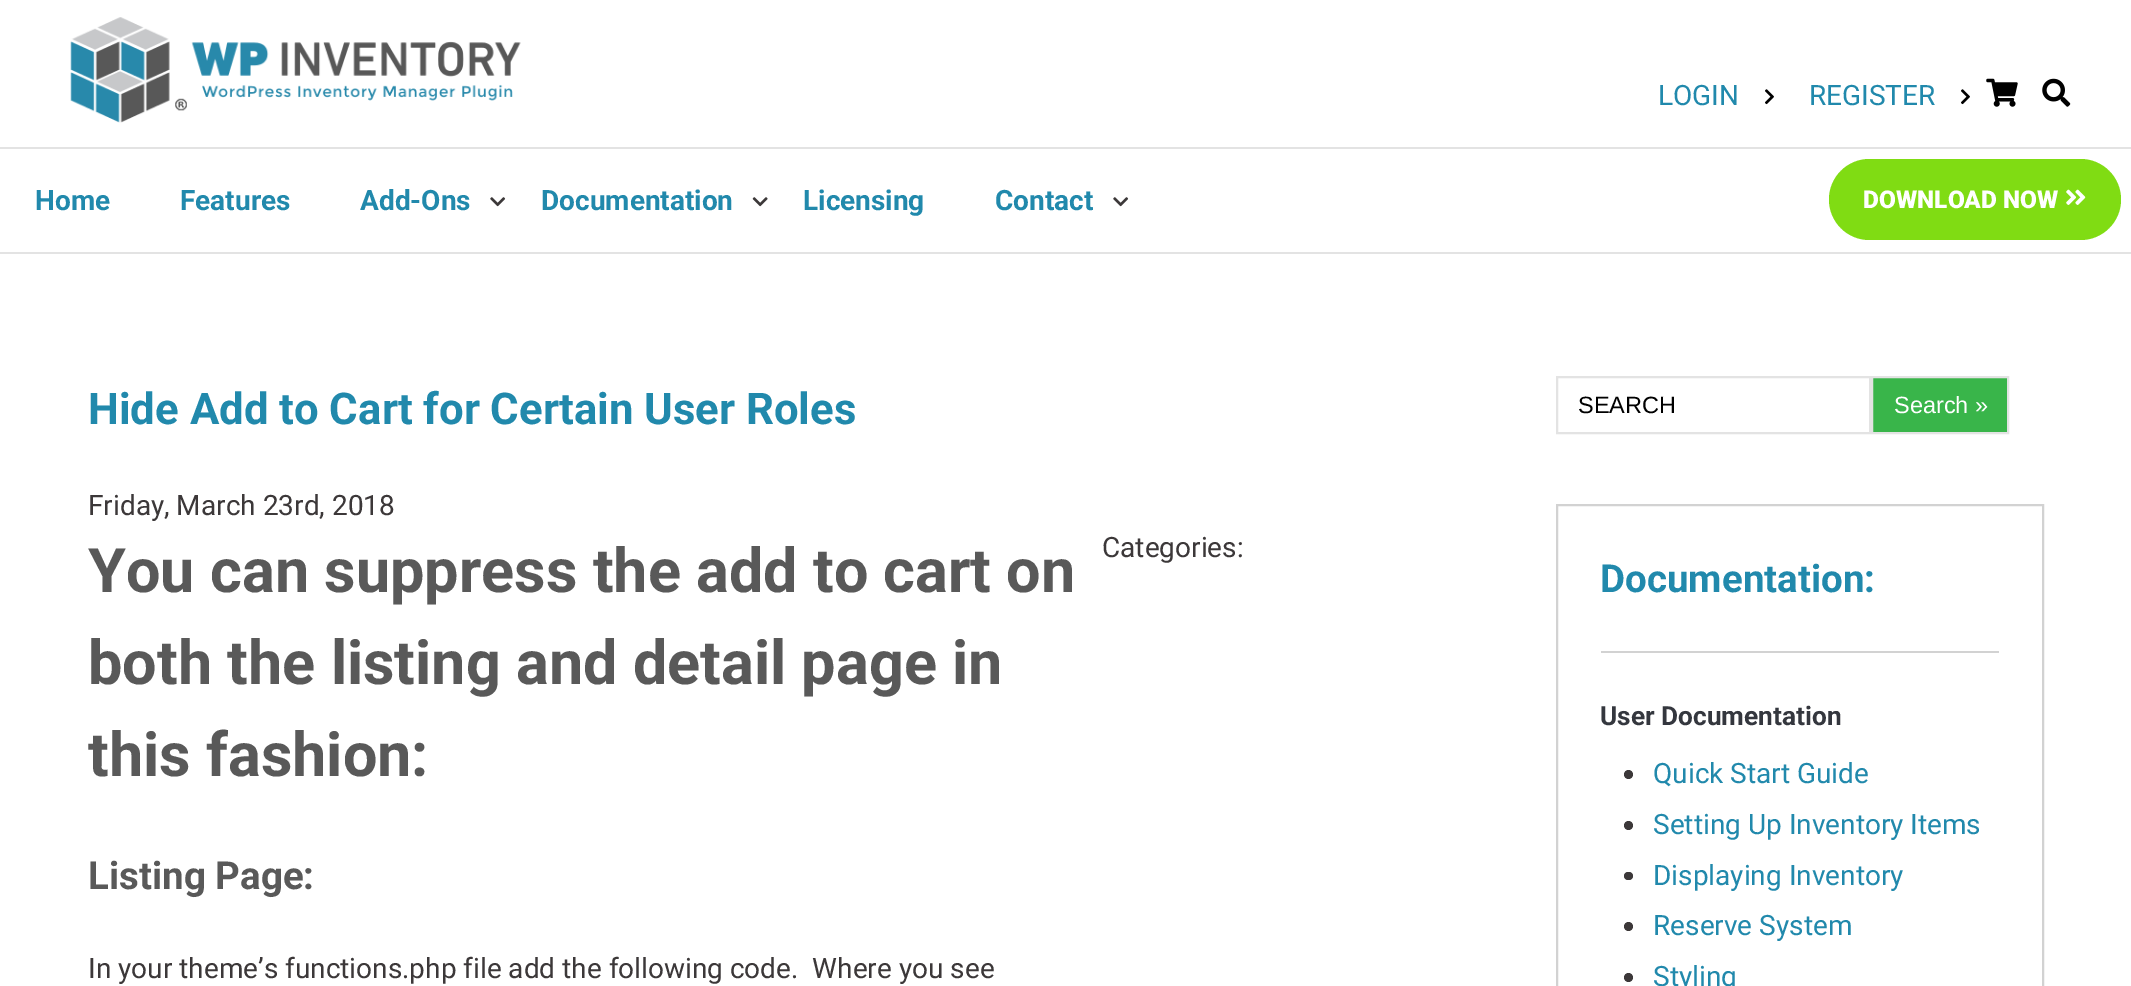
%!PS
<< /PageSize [2131 986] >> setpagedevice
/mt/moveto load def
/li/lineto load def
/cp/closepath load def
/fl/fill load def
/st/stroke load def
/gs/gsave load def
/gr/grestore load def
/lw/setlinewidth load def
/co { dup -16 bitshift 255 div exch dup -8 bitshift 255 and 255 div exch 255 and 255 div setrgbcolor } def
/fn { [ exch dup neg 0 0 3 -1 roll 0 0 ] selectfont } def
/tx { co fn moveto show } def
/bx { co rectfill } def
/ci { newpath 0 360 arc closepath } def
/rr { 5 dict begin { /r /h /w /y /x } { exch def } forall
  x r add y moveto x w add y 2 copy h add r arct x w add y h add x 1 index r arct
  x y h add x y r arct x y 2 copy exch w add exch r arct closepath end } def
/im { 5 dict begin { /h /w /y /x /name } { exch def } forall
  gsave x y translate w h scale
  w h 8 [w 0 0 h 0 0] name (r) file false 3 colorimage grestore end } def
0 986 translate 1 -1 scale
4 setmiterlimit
0 0 2131 986 16#FFFFFF bx
(media/1.raw) 70 17 451 106 im
(media/2.raw) 1765 89 9 16 im
(media/2.raw) 1961 89 9 16 im
(media/3.raw) 1986 78 32 29 im
(media/4.raw) 2042 78 29 29 im
0 147 2131 2 16#E3E3E3 bx
0 252 2131 2 16#E3E3E3 bx
(media/5.raw) 490 197 16 10 im
(media/6.raw) 752 197 16 10 im
(media/5.raw) 1113 197 16 10 im
16#80DC13 co
1829 159 292 81 40.5 rr fl
(media/7.raw) 2066 189 20 16 im
16#E3E3E3 co
2 lw
1557 377 313 56 rectstroke
16#39B54A co
1872 377 mt 2008 377 li 2008 433 li 1872 433 li cp gs fl gr
16#E3E3E3 co
st
16#D2D2D2 co
1557 505 486 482 rectstroke
1601 651 398 2 16#D2D2D2 bx
16#3C3839 co
1628.5 774.5 4.5 ci fl
1628.5 825.5 4.5 ci fl
1624 872 9 8 4 rr fl
1628.5 926.5 4.5 ci fl
1628.5 977.5 4.5 ci fl
(LOGIN) 1658 105 /Roboto-Regular 28 16#2189AC tx
(REGISTER) 1809 105 /Roboto-Regular 28 16#2189AC tx
(Home) 35 210 /Roboto-Bold 28 16#2189AC tx
(Features) 180 210 /Roboto-Bold 28 16#2189AC tx
(Add-Ons) 360 210 /Roboto-Bold 28 16#2189AC tx
(Documentation) 541 210 /Roboto-Bold 28 16#2189AC tx
(Licensing) 803 210 /Roboto-Bold 28 16#2189AC tx
(Contact) 995 210 /Roboto-Bold 28 16#2189AC tx
(DOWNLOAD NOW) 1863 208 /Roboto-Black 24.5 16#FFFFFF tx
(Hide Add to Cart for Certain User Roles) 88 424 /Roboto-Bold 43.75 16#2189AC tx
(Friday, March 23rd, 2018) 88 515 /Roboto-Regular 28 16#3C3839 tx
(You can suppress the add to cart on) 88 592 /Roboto-Bold 61.25 16#595959 tx
(both the listing and detail page in) 88 684 /Roboto-Bold 61.25 16#595959 tx
gs
88 376 1956 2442 rectclip
(this fashion:) 88 776 /Roboto-Bold 61.25 16#595959 tx
gr
(Listing Page:) 88 889 /Roboto-Bold 38.5 16#595959 tx
(In your theme’s functions.php file add the following code.  Where you see) 88 978 /Roboto-Regular 28 16#3C3839 tx
(Categories:) 1102 557 /Roboto-Regular 28 16#3C3839 tx
(SEARCH) 1578 413 /LiberationSans-Regular 23.5 16#000000 tx
(Search ») 1894 413 /LiberationSans-Regular 23.5 16#FFFFFF tx
(Documentation:) 1600 592 /Roboto-Bold 38.5 16#2189AC tx
(User Documentation) 1600 725 /Roboto-Bold 26.25 16#34373E tx
(Quick Start Guide) 1653 783 /Roboto-Regular 28 16#2189AC tx
(Setting Up Inventory Items) 1653 834 /Roboto-Regular 28 16#2189AC tx
(Displaying Inventory) 1653 885 /Roboto-Regular 28 16#2189AC tx
(Reserve System) 1653 935 /Roboto-Regular 28 16#2189AC tx
(Styling) 1653 986 /Roboto-Regular 28 16#2189AC tx
showpage
